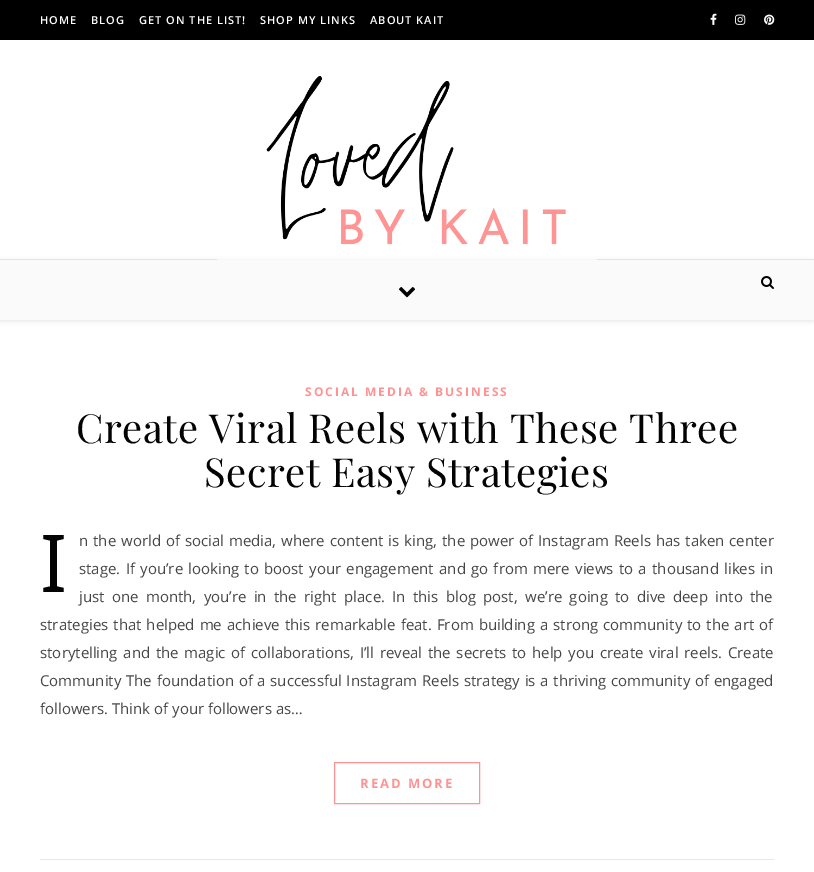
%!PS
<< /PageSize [814 872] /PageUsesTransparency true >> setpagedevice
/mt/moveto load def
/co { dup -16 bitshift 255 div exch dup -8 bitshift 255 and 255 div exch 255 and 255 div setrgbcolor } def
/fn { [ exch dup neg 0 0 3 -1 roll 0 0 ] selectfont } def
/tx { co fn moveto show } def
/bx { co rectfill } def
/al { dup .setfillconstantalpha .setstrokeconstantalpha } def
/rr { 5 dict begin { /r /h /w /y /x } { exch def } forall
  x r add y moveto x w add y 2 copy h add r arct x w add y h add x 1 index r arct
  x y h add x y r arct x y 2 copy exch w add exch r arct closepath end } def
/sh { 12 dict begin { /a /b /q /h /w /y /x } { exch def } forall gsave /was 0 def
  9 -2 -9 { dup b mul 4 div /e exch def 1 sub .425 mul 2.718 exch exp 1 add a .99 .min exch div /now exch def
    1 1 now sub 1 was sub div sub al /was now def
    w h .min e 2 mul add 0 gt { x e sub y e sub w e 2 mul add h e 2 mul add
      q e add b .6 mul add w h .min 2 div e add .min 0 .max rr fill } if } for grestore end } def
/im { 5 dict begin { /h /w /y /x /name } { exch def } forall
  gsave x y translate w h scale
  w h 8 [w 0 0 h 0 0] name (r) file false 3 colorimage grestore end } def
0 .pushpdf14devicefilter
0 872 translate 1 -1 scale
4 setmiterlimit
0 0 814 872 16#000000 bx
(media/1.raw) 710 13 7 12 im
(media/2.raw) 735 14 11 11 im
(media/3.raw) 764 14 11 11 im
0 40 814 219 16#FFFFFF bx
0 259 814 1 16#EBEBEB bx
(media/4.raw) 217 76 380 184 im
0 320 814 552 16#FFFFFF bx
16#000000 co
0 261 814 60 0 2.5 .1 sh
0 260 814 60 16#FAFAFA bx
(media/5.raw) 761 276 13 13 im
(media/6.raw) 398 287 18 11 im
16#FF9393 co
334.5 762.5 145 41 rectstroke
40 859 734 1 16#E8E8E8 bx
/OpenSans-SemiBold 11 fn
16#FFFFFF co
40 24 mt 1 0 (HOME) ashow
91 24 mt 1 0 (BLOG) ashow
139 24 mt 1 0 (GET ON THE LIST!) ashow
260 24 mt 1 0 (SHOP MY LINKS) ashow
370 24 mt 1 0 (ABOUT KAIT) ashow
/OpenSans-Bold 12 fn
16#FF9393 co
305 396 mt 2 0 (SOCIAL MEDIA & BUSINESS) ashow
/PlayfairDisplay-Regular 40 fn
16#030303 co
76 443 mt .5 0 (Create Viral Reels with These Three) ashow
204 487 mt .5 0 (Secret Easy Strategies) ashow
(I) 40 592 /NotoSans-Regular 80 16#030303 tx
/OpenSans-Regular 15 fn
16#464646 co
79 546 mt 1 0 32 (n the world of social media, where content is king, the power of Instagram Reels has taken center) widthshow
79 574 mt 1.4 0 32 (stage. If you’re looking to boost your engagement and go from mere views to a thousand likes in) widthshow
79 602 mt 3.4 0 32 (just one month, you’re in the right place. In this blog post, we’re going to dive deep into the) widthshow
40 630 mt 1.1 0 32 (strategies that helped me achieve this remarkable feat. From building a strong community to the art of) widthshow
40 658 mt 1.75 0 32 (storytelling and the magic of collaborations, I’ll reveal the secrets to help you create viral reels. Create) widthshow
40 686 mt .8 0 32 (Community The foundation of a successful Instagram Reels strategy is a thriving community of engaged) widthshow
(followers. Think of your followers as…) 40 714 /OpenSans-Regular 15 16#464646 tx
/OpenSans-Bold 13 fn
16#FF9393 co
360 788 mt 2 0 (READ MORE) ashow
.poppdf14devicefilter showpage
